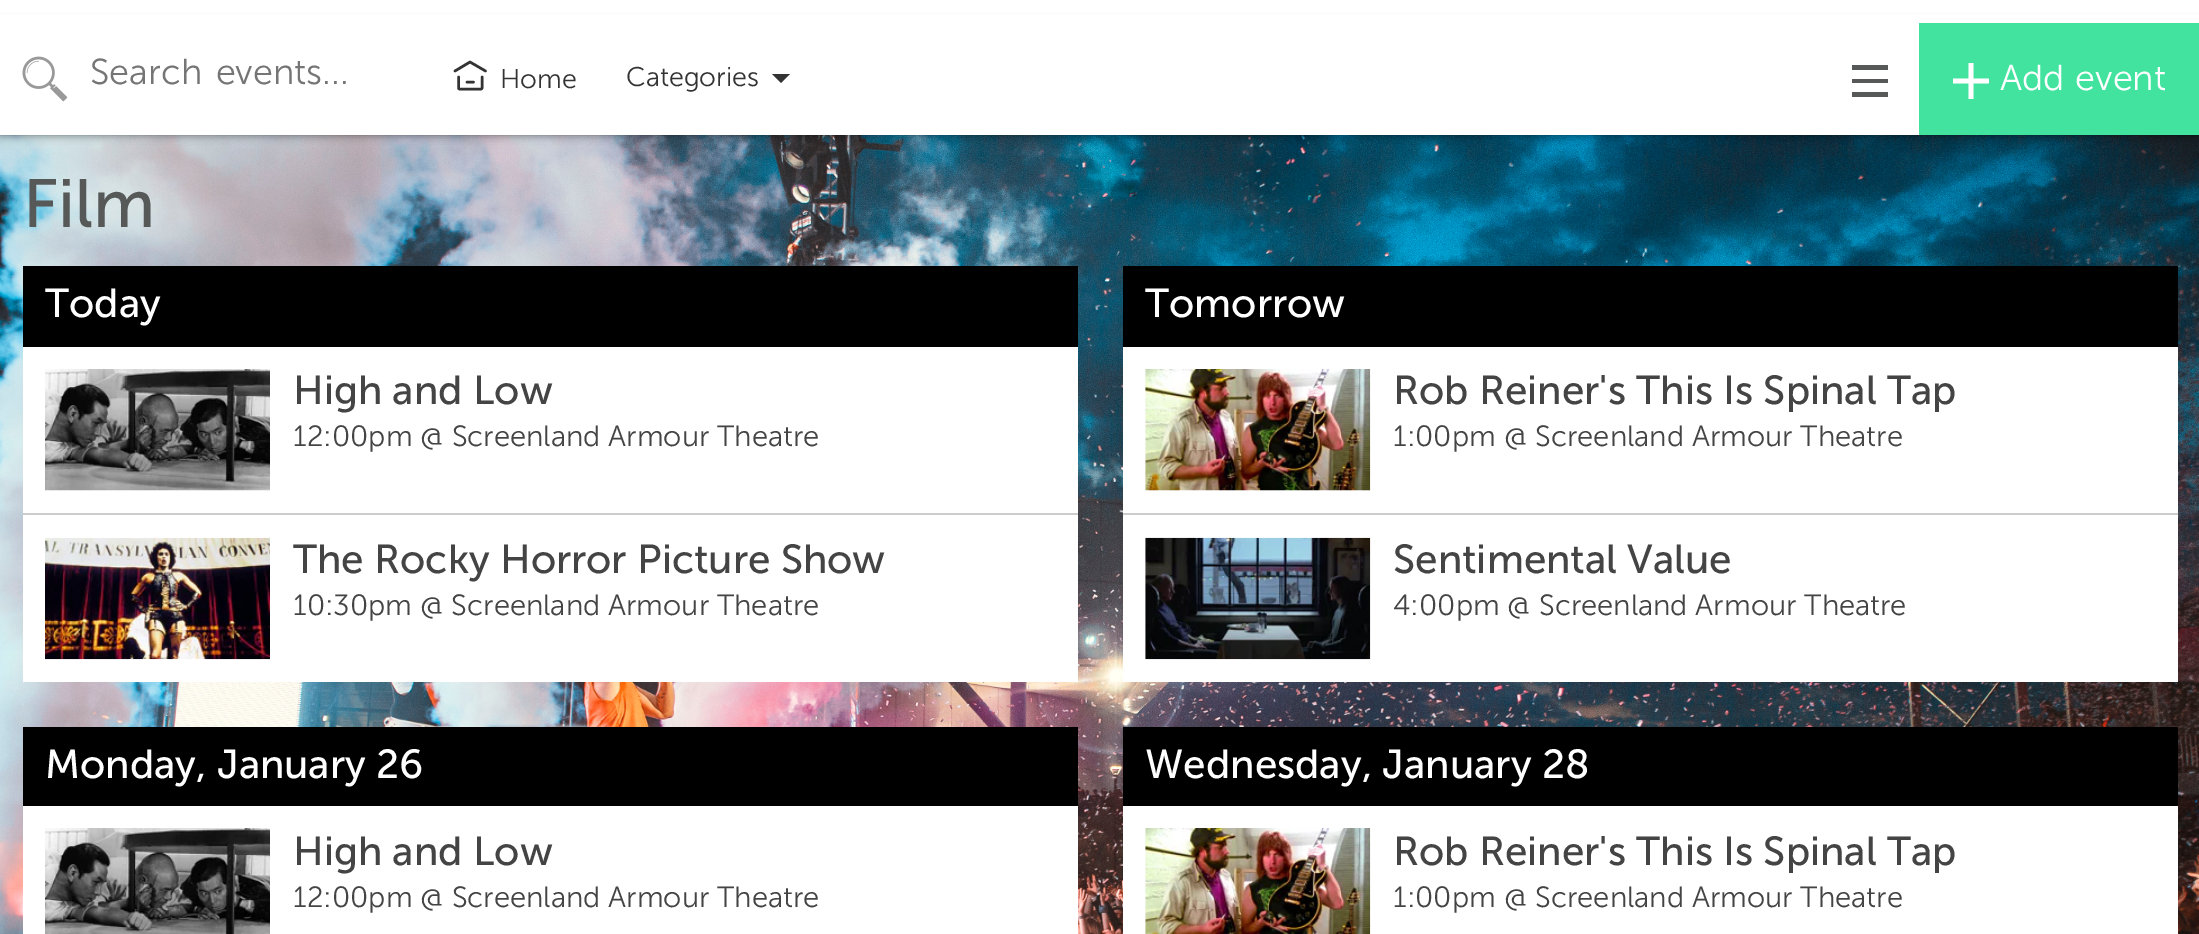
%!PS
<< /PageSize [2199 934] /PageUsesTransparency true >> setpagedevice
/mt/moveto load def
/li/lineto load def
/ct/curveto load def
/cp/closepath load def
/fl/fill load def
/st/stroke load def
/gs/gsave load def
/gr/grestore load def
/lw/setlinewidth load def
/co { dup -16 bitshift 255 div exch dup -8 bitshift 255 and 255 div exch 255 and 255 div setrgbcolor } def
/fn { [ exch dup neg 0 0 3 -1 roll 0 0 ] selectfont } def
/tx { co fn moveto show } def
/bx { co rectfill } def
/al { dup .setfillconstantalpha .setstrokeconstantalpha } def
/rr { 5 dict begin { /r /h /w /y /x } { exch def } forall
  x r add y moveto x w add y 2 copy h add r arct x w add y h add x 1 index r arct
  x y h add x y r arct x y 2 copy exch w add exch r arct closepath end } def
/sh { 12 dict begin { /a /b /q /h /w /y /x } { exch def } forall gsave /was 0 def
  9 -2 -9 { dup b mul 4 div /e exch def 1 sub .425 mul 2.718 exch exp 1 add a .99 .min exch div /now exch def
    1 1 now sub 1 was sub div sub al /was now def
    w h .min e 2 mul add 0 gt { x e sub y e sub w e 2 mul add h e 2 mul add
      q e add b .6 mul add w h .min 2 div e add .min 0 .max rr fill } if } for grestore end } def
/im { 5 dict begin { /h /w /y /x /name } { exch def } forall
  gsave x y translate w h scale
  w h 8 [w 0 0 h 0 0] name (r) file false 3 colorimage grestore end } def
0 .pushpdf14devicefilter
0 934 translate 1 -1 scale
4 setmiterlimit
0 0 2199 934 16#FFFFFF bx
(media/2.raw) 0 135 2199 799 im
16#000000 co
0 23 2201 112 0 4.5 .5 sh
0 14 2199 9 16#FFFFFF bx
0 23 1919 112 16#FFFFFF bx
(media/1.raw) 22 56 46 46 im
16#333333 co
2.5 lw
1 setlinecap
1 setlinejoin
455 71 mt 470 62 li 485.5 71 li 482 77 mt 482 88 li 482 88.5 481.5 89 481 89 ct 459.5 89 li 459 89 458.5 88.5 458.5 88 ct 458.5 77 li 467 82 mt 473.5 82 li st
772 74 mt 790 74 li 781 83 li cp fl
16#575858 co
1852 65 mt 1888 65 li 1888 70 li 1852 70 li cp 1852 79 mt 1888 79 li 1888 83 li 1852 83 li cp 1852 92 mt 1888 92 li 1888 97 li 1852 97 li cp fl
1919 23 280 112 16#42E39E bx
16#FFFFFF co
1968.5 63 mt 1973.5 63 li 1973.5 78.5 li 1989 78.5 li 1989 83.5 li 1973.5 83.5 li 1973.5 99 li 1968.5 99 li 1968.5 83.5 li 1953 83.5 li 1953 78.5 li 1968.5 78.5 li cp fl
23 266 1055 81 16#000000 bx
23 347 1055 166 16#FFFFFF bx
23 513 1055 2 16#CCCCCC bx
(media/3.raw) 45 369 225 122 im
23 515 1055 167 16#FFFFFF bx
(media/4.raw) 45 537 225 123 im
1123 266 1055 81 16#000000 bx
1123 347 1055 166 16#FFFFFF bx
1123 513 1055 2 16#CCCCCC bx
(media/5.raw) 1145 369 226 122 im
1123 515 1055 167 16#FFFFFF bx
(media/6.raw) 1145 537 226 123 im
23 727 1055 79 16#000000 bx
23 806 1055 128 16#FFFFFF bx
(media/7.raw) 45 828 225 106 im
1123 727 1055 79 16#000000 bx
1123 806 1055 128 16#FFFFFF bx
(media/8.raw) 1145 828 226 106 im
/MuseoSans-Light 36 fn
16#757575 co
90 84 mt 4 0 32 (Search events...) widthshow
(Home) 500 88 /MuseoSans-Light 27 16#333333 tx
(Categories) 626 86 /MuseoSans-Light 27 16#333333 tx
/MuseoSans-Light 36 fn
16#FFFFFF co
2000 90 mt 1 0 32 (Add event) widthshow
(Film) 23 227 /MuseoSans-Regular 68 16#575858 tx
(Today) 45 317 /MuseoSans-Regular 40.5 16#FFFFFF tx
(High and Low) 293 404 /MuseoSans-Regular 40.5 16#444444 tx
(12:00pm @ Screenland Armour Theatre) 293 446 /MuseoSans-Light 29.25 16#444444 tx
gs
293 538 740 47 rectclip
(The Rocky Horror Picture Show) 293 573 /MuseoSans-Regular 40.5 16#444444 tx
gr
(10:30pm @ Screenland Armour Theatre) 293 615 /MuseoSans-Light 29.25 16#444444 tx
(Tomorrow) 1145 317 /MuseoSans-Regular 40.5 16#FFFFFF tx
(Rob Reiner's This Is Spinal Tap) 1393 404 /MuseoSans-Regular 40.5 16#444444 tx
(1:00pm @ Screenland Armour Theatre) 1393 446 /MuseoSans-Light 29.25 16#444444 tx
(Sentimental Value) 1393 573 /MuseoSans-Regular 40.5 16#444444 tx
(4:00pm @ Screenland Armour Theatre) 1393 615 /MuseoSans-Light 29.25 16#444444 tx
(Monday, January 26) 45 778 /MuseoSans-Regular 40.5 16#FFFFFF tx
(High and Low) 293 865 /MuseoSans-Regular 40.5 16#444444 tx
(12:00pm @ Screenland Armour Theatre) 293 907 /MuseoSans-Light 29.25 16#444444 tx
(Wednesday, January 28) 1145 778 /MuseoSans-Regular 40.5 16#FFFFFF tx
(Rob Reiner's This Is Spinal Tap) 1393 865 /MuseoSans-Regular 40.5 16#444444 tx
(1:00pm @ Screenland Armour Theatre) 1393 907 /MuseoSans-Light 29.25 16#444444 tx
.poppdf14devicefilter showpage
